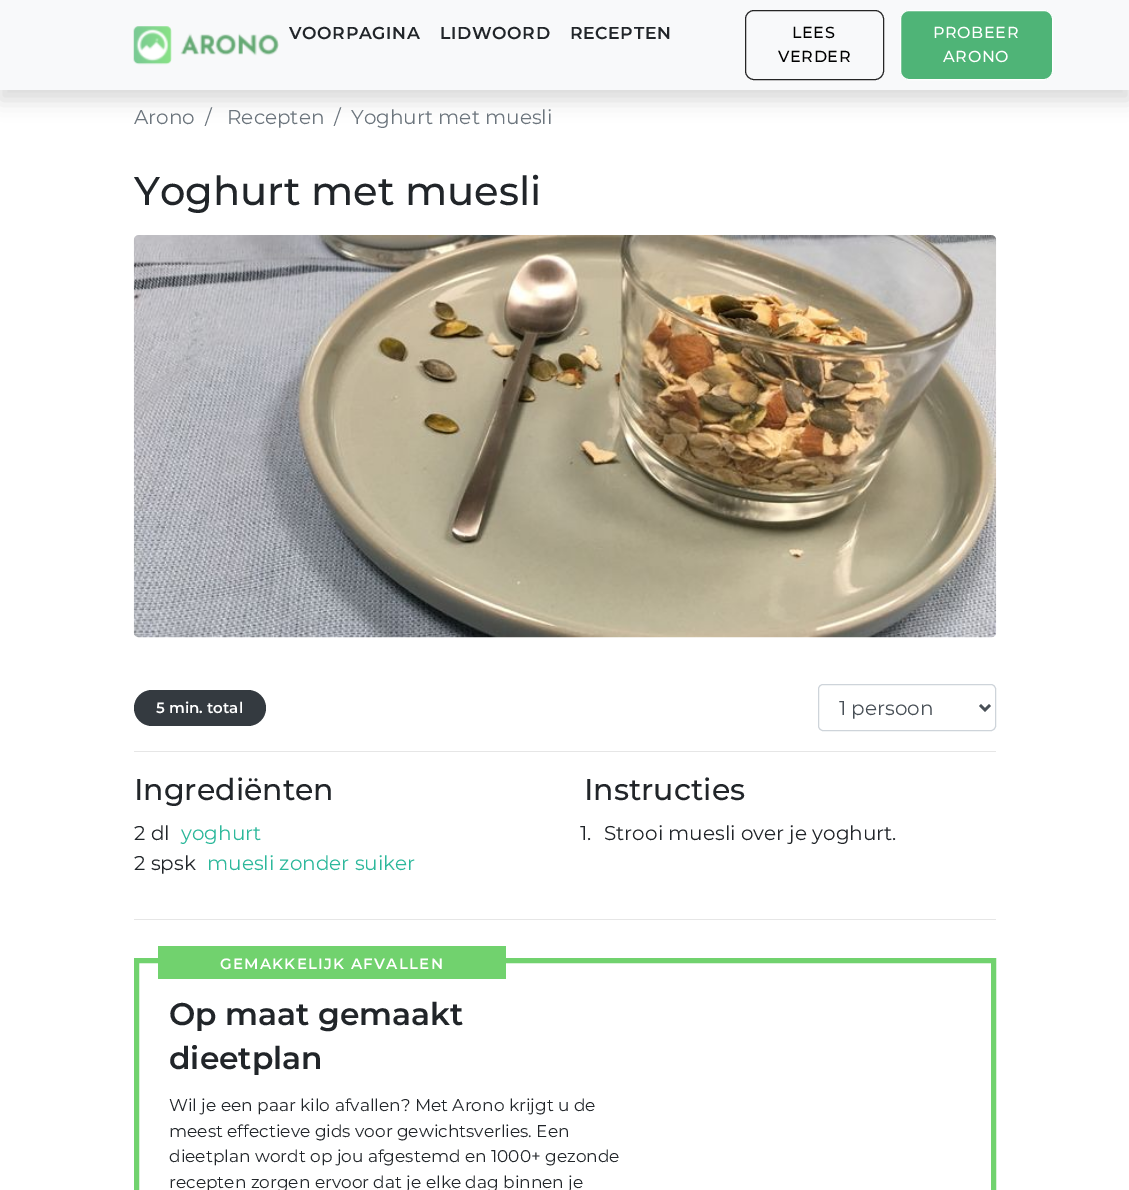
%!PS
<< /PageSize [1129 1190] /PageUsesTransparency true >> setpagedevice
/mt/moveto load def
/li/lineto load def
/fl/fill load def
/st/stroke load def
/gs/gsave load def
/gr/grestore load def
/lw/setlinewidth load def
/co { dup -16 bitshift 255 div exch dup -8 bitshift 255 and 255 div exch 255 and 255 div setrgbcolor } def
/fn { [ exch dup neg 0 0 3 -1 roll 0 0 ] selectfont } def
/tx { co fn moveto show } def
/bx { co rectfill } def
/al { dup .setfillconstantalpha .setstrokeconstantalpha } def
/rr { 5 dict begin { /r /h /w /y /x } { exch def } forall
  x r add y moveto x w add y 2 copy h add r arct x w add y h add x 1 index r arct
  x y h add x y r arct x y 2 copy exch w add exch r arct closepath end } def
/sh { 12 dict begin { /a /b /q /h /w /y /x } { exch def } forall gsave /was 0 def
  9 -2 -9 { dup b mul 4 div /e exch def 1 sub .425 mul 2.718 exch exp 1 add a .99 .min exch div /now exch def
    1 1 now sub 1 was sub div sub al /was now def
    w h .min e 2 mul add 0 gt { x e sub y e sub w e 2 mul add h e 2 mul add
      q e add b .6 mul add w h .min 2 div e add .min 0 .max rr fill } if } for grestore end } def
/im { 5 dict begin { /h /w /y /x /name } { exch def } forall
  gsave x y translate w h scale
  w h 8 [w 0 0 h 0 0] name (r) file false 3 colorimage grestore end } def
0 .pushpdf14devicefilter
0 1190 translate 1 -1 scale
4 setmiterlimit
0 0 1129 1190 16#FFFFFF bx
16#000000 co
0 10 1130 90 0 10 .15 sh
0 0 1129 90 16#F8F9FA bx
(media/1.raw) 133 26 39 39 im
(media/2.raw) 180 33 99 23 im
16#252525 co
745.5 10.5 138 69 8.5 rr st
16#4FB477 co
900.5 10.5 152 69 8.5 rr gs fl gr
16#FFFFFF co
st
(media/3.raw) 133 235 864 403 im
16#343A40 co
134 690 132 36 18 rr fl
16#CED4DA co
818.5 684.5 177 46 4.5 rr st
16#495057 co
2.5 lw
980 705 mt 985 710 li 990 705 li st
134 751 862 1 16#E6E6E6 bx
134 919 862 1 16#E6E6E6 bx
16#71D26E co
5 lw
136.5 960.5 857 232 rectstroke
158 946 348 33 16#71D26E bx
/Montserrat-SemiBold 17.25 fn
16#212529 co
289 39 mt .6 0 (VOORPAGINA) ashow
440 39 mt .6 0 (LIDWOORD) ashow
570 39 mt .6 0 (RECEPTEN) ashow
/Montserrat-Medium 16 fn
16#000000 co
792 38 mt .6 0 (LEES) ashow
778 62 mt .6 0 (VERDER) ashow
16#FFFFFF co
933 38 mt .6 0 (PROBEER) ashow
943 62 mt .6 0 (ARONO) ashow
(Arono) 134 124 /Montserrat-Regular 20 16#6C757D tx
(/) 205 124 /Montserrat-Regular 20 16#6C757D tx
(Recepten) 227 124 /Montserrat-Regular 20 16#6C757D tx
(/) 334 124 /Montserrat-Regular 20 16#6C757D tx
(Yoghurt met muesli) 351 124 /Montserrat-Regular 20 16#6C757D tx
(Yoghurt met muesli) 134 205 /Montserrat-Medium 40 16#212529 tx
(5 min. total) 156 713 /Montserrat-SemiBold 15 16#FFFFFF tx
(1 persoon) 839 715 /Montserrat-Regular 20 16#495057 tx
(Ingrediënten) 134 800 /Montserrat-Medium 30 16#212529 tx
(2 dl) 134 840 /Montserrat-Regular 20 16#212529 tx
(yoghurt) 181 840 /Montserrat-Regular 20 16#2DB89B tx
(2 spsk) 134 870 /Montserrat-Regular 20 16#212529 tx
(muesli zonder suiker) 207 870 /Montserrat-Regular 20 16#2DB89B tx
(Instructies) 584 800 /Montserrat-Medium 30 16#212529 tx
(1.) 580 840 /Montserrat-Regular 20 16#212529 tx
(Strooi muesli over je yoghurt.) 604 840 /Montserrat-Regular 20 16#212529 tx
/Montserrat-SemiBold 15 fn
16#FFFFFF co
220 969 mt 1.25 0 (GEMAKKELIJK AFVALLEN) ashow
(Op maat gemaakt) 169 1025 /Montserrat-SemiBold 31.25 16#212529 tx
(dieetplan) 169 1069 /Montserrat-SemiBold 31.25 16#212529 tx
(Wil je een paar kilo afvallen? Met Arono krijgt u de) 169 1111 /Montserrat-Regular 17 16#212529 tx
(meest effectieve gids voor gewichtsverlies. Een) 169 1137 /Montserrat-Regular 17 16#212529 tx
(dieetplan wordt op jou afgestemd en 1000+ gezonde) 169 1162 /Montserrat-Regular 17 16#212529 tx
(recepten zorgen ervoor dat je elke dag binnen je) 169 1188 /Montserrat-Regular 17 16#212529 tx
.poppdf14devicefilter showpage
